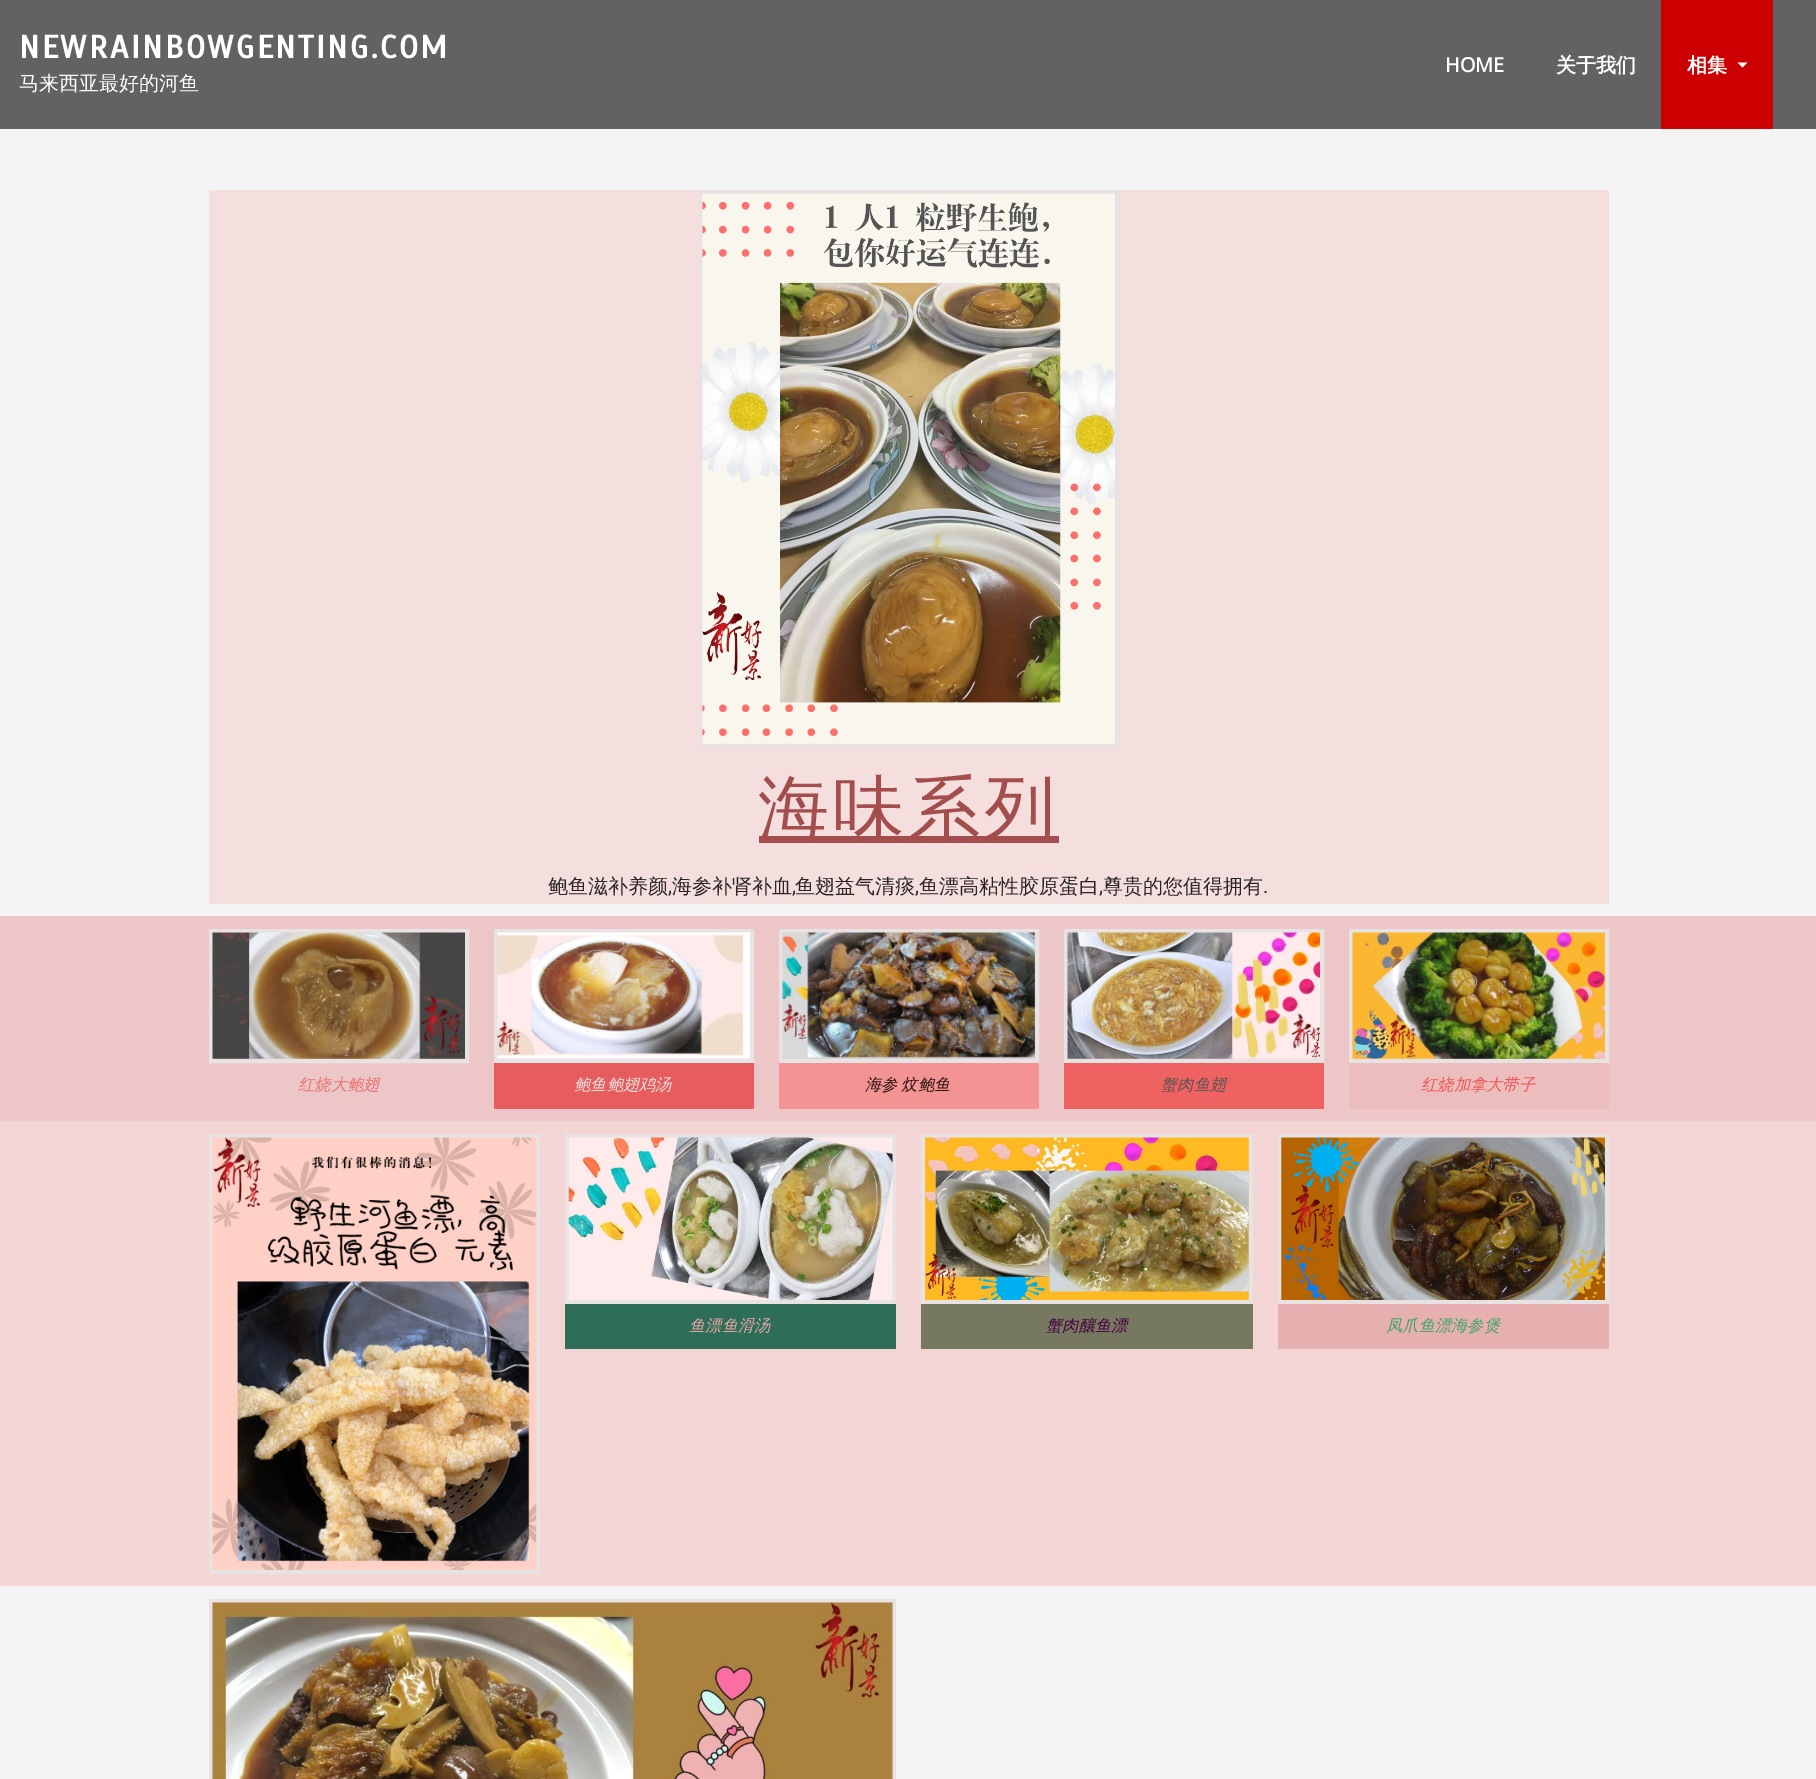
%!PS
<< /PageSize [1816 1779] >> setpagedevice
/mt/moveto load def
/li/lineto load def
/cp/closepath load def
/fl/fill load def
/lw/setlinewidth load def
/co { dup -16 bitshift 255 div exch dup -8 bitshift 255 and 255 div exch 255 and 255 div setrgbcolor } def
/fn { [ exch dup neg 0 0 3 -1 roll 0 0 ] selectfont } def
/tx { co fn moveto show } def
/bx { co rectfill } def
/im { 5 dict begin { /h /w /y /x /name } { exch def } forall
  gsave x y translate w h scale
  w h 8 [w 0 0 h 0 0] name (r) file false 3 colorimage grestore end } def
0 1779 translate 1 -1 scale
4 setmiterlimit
0 0 1816 1779 16#F4F4F4 bx
0 0 1816 129 16#626262 bx
1661 0 112 129 16#CC0000 bx
16#FFFFFF co
1737.5 62.5 mt 1747.5 62.5 li 1742.5 67.5 li cp fl
209 190 1400 714 16#F5DEDE bx
16#E9E2E2 co
4 lw
701 192 416 554 rectstroke
(media/1.raw) 702 193 413 551 im
759 836 300 7 16#A44D4D bx
0 916 1816 205 16#EDC7C7 bx
16#E9E2E2 co
211 931 256 130 rectstroke
(media/2.raw) 212 932 253 127 im
496 931 256 130 rectstroke
(media/3.raw) 497 932 253 127 im
494 1063 260 46 16#E75D5D bx
16#E9E2E2 co
781 931 256 130 rectstroke
(media/4.raw) 782 932 253 127 im
779 1063 260 46 16#F49393 bx
16#E9E2E2 co
1066 931 256 130 rectstroke
(media/5.raw) 1067 932 253 127 im
1064 1063 260 46 16#EF6262 bx
16#E9E2E2 co
1351 931 256 130 rectstroke
(media/6.raw) 1352 932 253 127 im
1349 1063 260 46 16#ECBDBD bx
0 1121 1816 465 16#F3D5D5 bx
16#E9E2E2 co
211 1136 327 436 rectstroke
(media/7.raw) 212 1137 325 433 im
567 1136 327 166 rectstroke
(media/8.raw) 568 1137 325 163 im
565 1304 331 45 16#2E6E59 bx
16#E9E2E2 co
923 1136 328 166 rectstroke
(media/9.raw) 925 1137 324 163 im
921 1304 332 45 16#777860 bx
16#E9E2E2 co
1280 1136 327 166 rectstroke
(media/10.raw) 1281 1137 324 163 im
1278 1304 331 45 16#E7B0B0 bx
16#E9E2E2 co
211 1601 683 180 rectstroke
(media/11.raw) 212 1602 681 177 im
/Scada-Bold 32 fn
16#FFFFFF co
19 58 mt 2.5 0 (NEWRAINBOWGENTING.COM) ashow
(马来西亚最好的河鱼) 19 90 /WenQuanYiZenHei-Medium 20 16#FFFFFF tx
(HOME) 1445 72 /OpenSans-Bold 20 16#FFFFFF tx
(关于我们) 1556 72 /WenQuanYiZenHei-Bold 20 16#FFFFFF tx
(相集) 1687 72 /WenQuanYiZenHei-Bold 20 16#FFFFFF tx
/WenQuanYiZenHei-Medium 71.25 fn
16#A44D4D co
758 833 mt 4 0 (海味系列) ashow
(鲍鱼滋补养颜) 548 893 /WenQuanYiZenHei-Medium 20 16#2B2424 tx
(,) 668 893 /Roboto-Regular 20 16#2B2424 tx
(海参补肾补血) 672 893 /WenQuanYiZenHei-Medium 20 16#2B2424 tx
(,) 792 893 /Roboto-Regular 20 16#2B2424 tx
(鱼翅益气清痰) 795 893 /WenQuanYiZenHei-Medium 20 16#2B2424 tx
(,) 915 893 /Roboto-Regular 20 16#2B2424 tx
(鱼漂高粘性胶原蛋白) 919 893 /WenQuanYiZenHei-Medium 20 16#2B2424 tx
(,) 1099 893 /Roboto-Regular 20 16#2B2424 tx
(尊贵的您值得拥有) 1103 893 /WenQuanYiZenHei-Medium 20 16#2B2424 tx
(.) 1263 893 /Roboto-Regular 20 16#2B2424 tx
(红烧大鲍翅) 298 1090 /WenQuanYiZenHei-MediumItalic 16.25 16#E97070 tx
(鲍鱼鲍翅鸡汤) 574 1090 /WenQuanYiZenHei-MediumItalic 16.25 16#E9E2E2 tx
16#2B1111 co
865 1090 mt -1 0 32 (海参 炆鲍鱼) widthshow
(蟹肉鱼翅) 1161 1090 /WenQuanYiZenHei-MediumItalic 16.25 16#5B5454 tx
(红烧加拿大带子) 1421 1090 /WenQuanYiZenHei-MediumItalic 16.25 16#F05454 tx
(鱼漂鱼滑汤) 689 1331 /WenQuanYiZenHei-MediumItalic 16.25 16#E7A8A8 tx
(蟹肉釀鱼漂) 1046 1331 /WenQuanYiZenHei-MediumItalic 16.25 16#470545 tx
(凤爪鱼漂海参煲) 1386 1331 /WenQuanYiZenHei-MediumItalic 16.25 16#3FA564 tx
showpage
